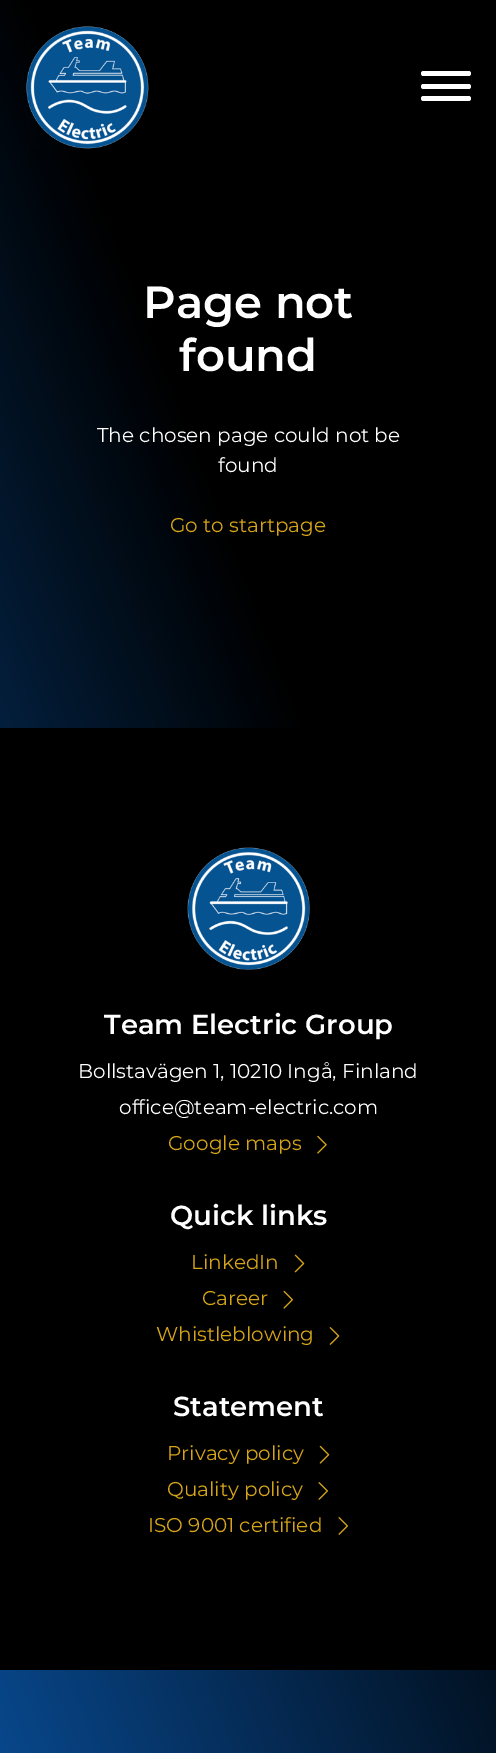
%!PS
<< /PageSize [496 1753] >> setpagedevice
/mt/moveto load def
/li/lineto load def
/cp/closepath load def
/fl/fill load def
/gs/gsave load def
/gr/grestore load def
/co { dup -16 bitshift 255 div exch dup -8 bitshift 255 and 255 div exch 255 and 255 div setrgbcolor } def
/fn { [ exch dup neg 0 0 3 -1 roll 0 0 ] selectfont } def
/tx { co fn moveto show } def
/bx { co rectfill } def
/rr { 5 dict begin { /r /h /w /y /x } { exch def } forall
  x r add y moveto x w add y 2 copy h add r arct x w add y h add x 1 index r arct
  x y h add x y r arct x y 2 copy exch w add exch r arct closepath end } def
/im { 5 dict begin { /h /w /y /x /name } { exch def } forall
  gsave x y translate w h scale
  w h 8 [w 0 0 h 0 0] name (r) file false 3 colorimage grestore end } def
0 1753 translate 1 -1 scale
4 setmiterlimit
0 0 496 1753 16#FFFFFF bx
gs 0 0 mt 496 0 li 496 1753 li 0 1753 li cp clip newpath
<< /ShadingType 2 /ColorSpace /DeviceRGB /Coords [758 681 -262 1073] /Extend [true true] /Function << /FunctionType 3 /Domain [0 1] /Functions [<< /FunctionType 2 /Domain [0 1] /C0 [0 0 0] /C1 [0 0 0] /N 1 >> << /FunctionType 2 /Domain [0 1] /C0 [0 0 0] /C1 [.031 .278 .545] /N 1 >>] /Bounds [.4] /Encode [0 1 0 1] >> >> shfill gr
(media/1.raw) 26 26 123 123 im
421 71 50 5 2.5 rr fl
421 84 50 5 2.5 rr fl
421 96 50 5 2.5 rr fl
0 728 496 942 16#000000 bx
(media/2.raw) 187 847 123 123 im
(media/3.raw) 317 1135 10 19 im
(media/4.raw) 294 1254 11 19 im
(media/5.raw) 283 1290 10 19 im
(media/6.raw) 329 1327 11 18 im
(media/7.raw) 319 1445 11 19 im
(media/8.raw) 318 1482 10 18 im
(media/8.raw) 338 1517 10 18 im
(Page not) 143 318 /Montserrat-SemiBold 45 16#FFFFFF tx
(found) 179 371 /Montserrat-SemiBold 45 16#FFFFFF tx
(The chosen page could not be) 97 442 /Montserrat-Regular 20 16#FFFFFF tx
(found) 218 472 /Montserrat-Regular 20 16#FFFFFF tx
(Go to startpage) 170 532 /Montserrat-Regular 20 16#D5A419 tx
(Team Electric Group) 104 1034 /Montserrat-SemiBold 27.5 16#FFFFFF tx
(Bollstavägen 1, 10210 Ingå, Finland) 78 1078 /Montserrat-Regular 20 16#FFFFFF tx
(office@team-electric.com) 119 1114 /Montserrat-Regular 20 16#FFFFFF tx
(Google maps) 168 1150 /Montserrat-Regular 20 16#D5A419 tx
(Quick links) 170 1225 /Montserrat-SemiBold 27.5 16#FFFFFF tx
(LinkedIn) 191 1269 /Montserrat-Regular 20 16#D5A419 tx
(Career) 202 1305 /Montserrat-Regular 20 16#D5A419 tx
(Whistleblowing) 156 1341 /Montserrat-Regular 20 16#D5A419 tx
(Statement) 173 1416 /Montserrat-SemiBold 27.5 16#FFFFFF tx
(Privacy policy) 167 1460 /Montserrat-Regular 20 16#D5A419 tx
(Quality policy) 167 1496 /Montserrat-Regular 20 16#D5A419 tx
(ISO 9001 certified) 148 1532 /Montserrat-Regular 20 16#D5A419 tx
showpage
